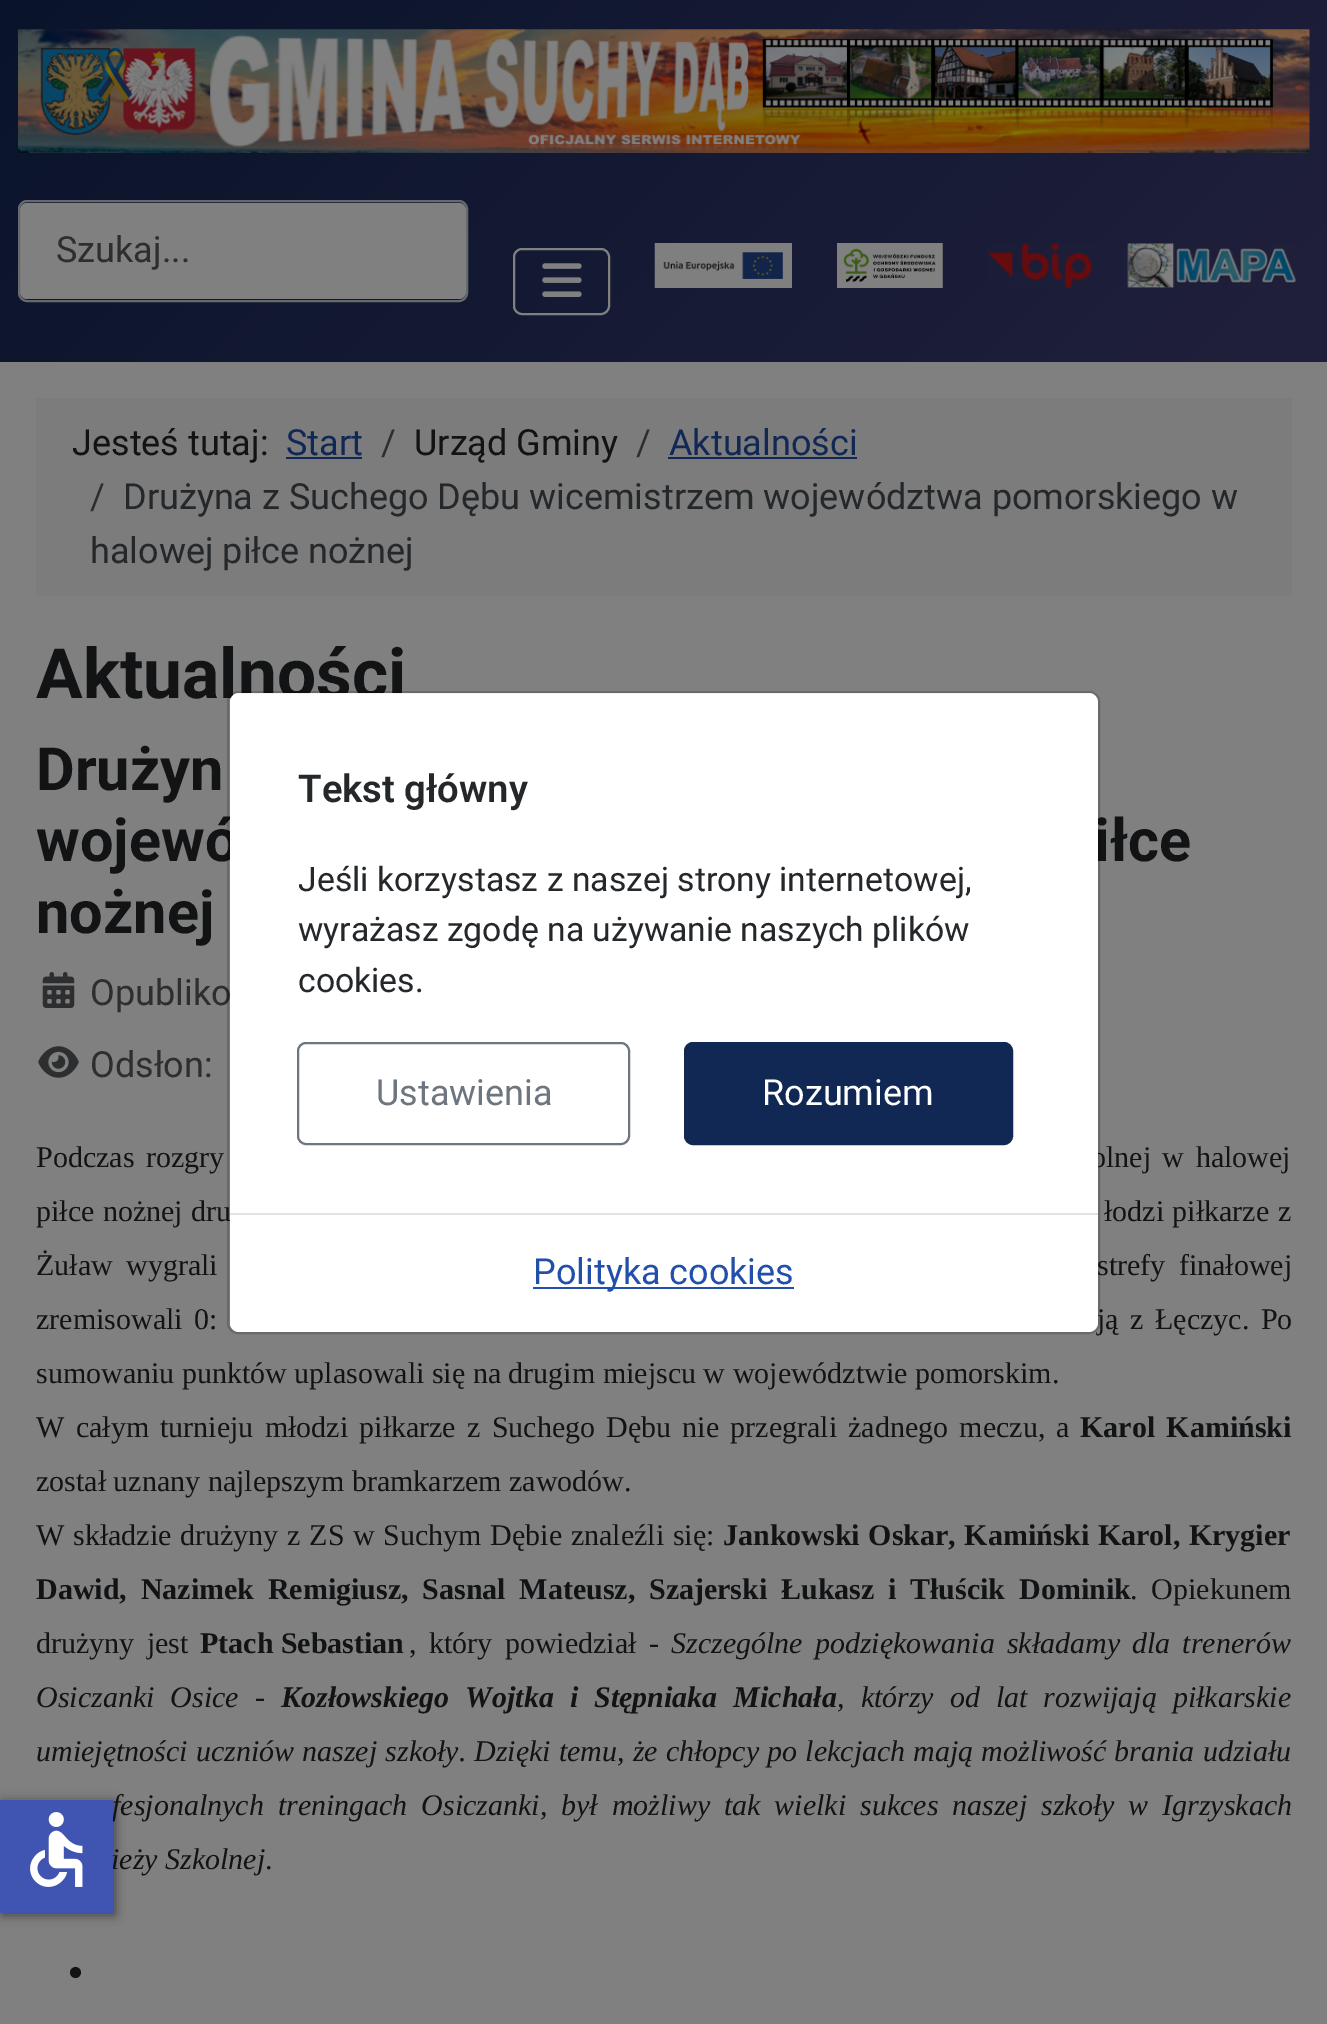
%!PS
<< /PageSize [1327 2024] /PageUsesTransparency true >> setpagedevice
/mt/moveto load def
/li/lineto load def
/cp/closepath load def
/fl/fill load def
/st/stroke load def
/gs/gsave load def
/gr/grestore load def
/lw/setlinewidth load def
/co { dup -16 bitshift 255 div exch dup -8 bitshift 255 and 255 div exch 255 and 255 div setrgbcolor } def
/fn { [ exch dup neg 0 0 3 -1 roll 0 0 ] selectfont } def
/tx { co fn moveto show } def
/bx { co rectfill } def
/al { dup .setfillconstantalpha .setstrokeconstantalpha } def
/ci { newpath 0 360 arc closepath } def
/rr { 5 dict begin { /r /h /w /y /x } { exch def } forall
  x r add y moveto x w add y 2 copy h add r arct x w add y h add x 1 index r arct
  x y h add x y r arct x y 2 copy exch w add exch r arct closepath end } def
/sh { 12 dict begin { /a /b /q /h /w /y /x } { exch def } forall gsave /was 0 def
  9 -2 -9 { dup b mul 4 div /e exch def 1 sub .425 mul 2.718 exch exp 1 add a .99 .min exch div /now exch def
    1 1 now sub 1 was sub div sub al /was now def
    w h .min e 2 mul add 0 gt { x e sub y e sub w e 2 mul add h e 2 mul add
      q e add b .6 mul add w h .min 2 div e add .min 0 .max rr fill } if } for grestore end } def
/im { 5 dict begin { /h /w /y /x /name } { exch def } forall
  gsave x y translate w h scale
  w h 8 [w 0 0 h 0 0] name (r) file false 3 colorimage grestore end } def
0 .pushpdf14devicefilter
0 2024 translate 1 -1 scale
4 setmiterlimit
0 0 1327 2024 16#808080 bx
gs 0 0 mt 1327 0 li 1327 362 li 0 362 li cp clip newpath
<< /ShadingType 2 /ColorSpace /DeviceRGB /Coords [241 -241 1086 604] /Extend [true true] /Function << /FunctionType 2 /Domain [0 1] /C0 [.035 .078 .169] /C1 [.129 .125 .235] /N 1 >> >> shfill gr
(media/1.raw) 18 29 1292 124 im
20 203 446 96 7 rr fl
16#676A6D co
2 lw
19 201 448 100 8 rr st
16#808080 co
514 249 95 65 8 rr st
(media/2.raw) 542 263 40 34 im
(media/3.raw) 654 243 138 45 im
(media/4.raw) 837 243 106 45 im
(media/5.raw) 987 243 105 45 im
(media/6.raw) 1127 243 170 45 im
36 398 1256 198 16#7C7C7C bx
286 457 76 2 16#112855 bx
668 457 189 2 16#112855 bx
(media/7.raw) 42 972 33 36 im
(media/8.raw) 38 1046 41 32 im
16#111315 co
75.5 1972.5 5.5 ci fl
16#000000 co
2 1802 113 113 0 5.5 .5 sh
(Szukaj...) 56 262 /Roboto-Regular 36 16#2D2E30 tx
(Jesteś tutaj:) 72 455 /Roboto-Regular 36 16#111315 tx
(Start) 286 455 /Roboto-Regular 36 16#112855 tx
(/) 381 455 /Roboto-Regular 36 16#2D2E30 tx
(Urząd Gminy) 414 455 /Roboto-Regular 36 16#111315 tx
(/) 636 455 /Roboto-Regular 36 16#2D2E30 tx
(Aktualności) 669 455 /Roboto-Regular 36 16#112855 tx
(/) 90 509 /Roboto-Regular 36 16#2D2E30 tx
(Drużyna z Suchego Dębu wicemistrzem województwa pomorskiego w) 123 509 /Roboto-Regular 36 16#24282B tx
(halowej piłce nożnej) 90 563 /Roboto-Regular 36 16#24282B tx
(Aktualności) 36 698 /Roboto-Bold 69.5 16#111315 tx
(Drużyn) 36 790 /Roboto-Bold 59.5 16#111315 tx
(wojewó) 36 861 /Roboto-Bold 59.5 16#111315 tx
(iłce) 1094 861 /Roboto-Bold 59.5 16#111315 tx
(nożnej) 36 933 /Roboto-Bold 59.5 16#111315 tx
(Opubliko) 90 1005 /Roboto-Regular 36 16#2D2E30 tx
(Odsłon:) 90 1077 /Roboto-Regular 36 16#2D2E30 tx
/LiberationSerif-Regular 30 fn
16#111315 co
36 1167 mt 4 0 32 (Podczas rozgry) widthshow
1091 1167 mt 4 0 32 (olnej w halowej) widthshow
36 1221 mt 1 0 32 (piłce nożnej dru) widthshow
1104 1221 mt 1 0 32 (łodzi piłkarze z) widthshow
36 1275 mt 6 0 32 (Żuław wygrali) widthshow
1097 1275 mt 6 0 32 (strefy finałowej) widthshow
36 1329 mt 4 0 32 (zremisowali 0:) widthshow
1097 1329 mt 4 0 32 (ją z Łęczyc. Po) widthshow
(sumowaniu punktów uplasowali się na drugim miejscu w województwie pomorskim.) 36 1383 /LiberationSerif-Regular 30 16#111315 tx
36 1437 mt 3.75 0 32 (W całym turnieju młodzi piłkarze z Suchego Dębu nie przegrali żadnego meczu, a) widthshow
/LiberationSerif-Bold 30 fn
1080 1437 mt 3.75 0 32 (Karol Kamiński) widthshow
(został uznany najlepszym bramkarzem zawodów.) 36 1491 /LiberationSerif-Regular 30 16#111315 tx
36 1545 mt 1.25 0 32 (W składzie drużyny z ZS w Suchym Dębie znaleźli się:) widthshow
/LiberationSerif-Bold 30 fn
723 1545 mt 1 0 32 (Jankowski Oskar, Kamiński Karol, Krygier) widthshow
36 1599 mt 6.25 0 32 (Dawid, Nazimek Remigiusz, Sasnal Mateusz, Szajerski Łukasz i Tłuścik Dominik) widthshow
/LiberationSerif-Regular 30 fn
1130 1599 mt 6.25 0 32 (. Opiekunem) widthshow
36 1653 mt 5 0 32 (drużyny jest) widthshow
(Ptach Sebastian) 200 1653 /LiberationSerif-Bold 30 16#111315 tx
/LiberationSerif-Regular 30 fn
409 1653 mt 5 0 32 (, który powiedział -) widthshow
/LiberationSerif-Italic 30 fn
671 1653 mt 4.5 0 32 (Szczególne podziękowania składamy dla trenerów) widthshow
36 1707 mt 8.5 0 32 (Osiczanki Osice -) widthshow
/LiberationSerif-BoldItalic 30 fn
281 1707 mt 8.5 0 32 (Kozłowskiego Wojtka i Stępniaka Michała) widthshow
/LiberationSerif-Italic 30 fn
837 1707 mt 8.5 0 32 (, którzy od lat rozwijają piłkarskie) widthshow
36 1761 mt .6 0 32 (umiejętności uczniów naszej szkoły. Dzięki temu, że chłopcy po lekcjach mają możliwość brania udziału) widthshow
112 1815 mt 6.4 0 32 (fesjonalnych treningach Osiczanki, był możliwy tak wielki sukces naszej szkoły w Igrzyskach) widthshow
(ieży Szkolnej) 111 1869 /LiberationSerif-Italic 30 16#111315 tx
(.) 265 1869 /LiberationSerif-Regular 30 16#111315 tx
16#FFFFFF co
230 693 868 639 9 rr fl
0.18 al
16#000000 co
228 692 871 641 10 rr st
1 al
(Tekst główny) 298 802 /Roboto-SemiBold 38.25 16#24282B tx
(Jeśli korzystasz z naszej strony internetowej,) 298 891 /Roboto-Regular 33.75 16#24282B tx
(wyrażasz zgodę na używanie naszych plików) 298 941 /Roboto-Regular 33.75 16#24282B tx
(cookies.) 298 992 /Roboto-Regular 33.75 16#24282B tx
16#6D757E co
298 1043 331 101 8 rr st
(Ustawienia) 376 1105 /Roboto-Regular 36 16#6D757E tx
16#112855 co
685 1043 327 101 8 rr gs fl gr
st
(Rozumiem) 762 1105 /Roboto-Regular 36 16#FFFFFF tx
230 1213 868 2 16#DFE3E7 bx
533 1287 261 2 16#224FAA bx
(Polityka cookies) 533 1284 /Roboto-Regular 36 16#224FAA tx
0 1800 113 113 16#4054B2 bx
(media/9.raw) 30 1812 53 75 im
.poppdf14devicefilter showpage
